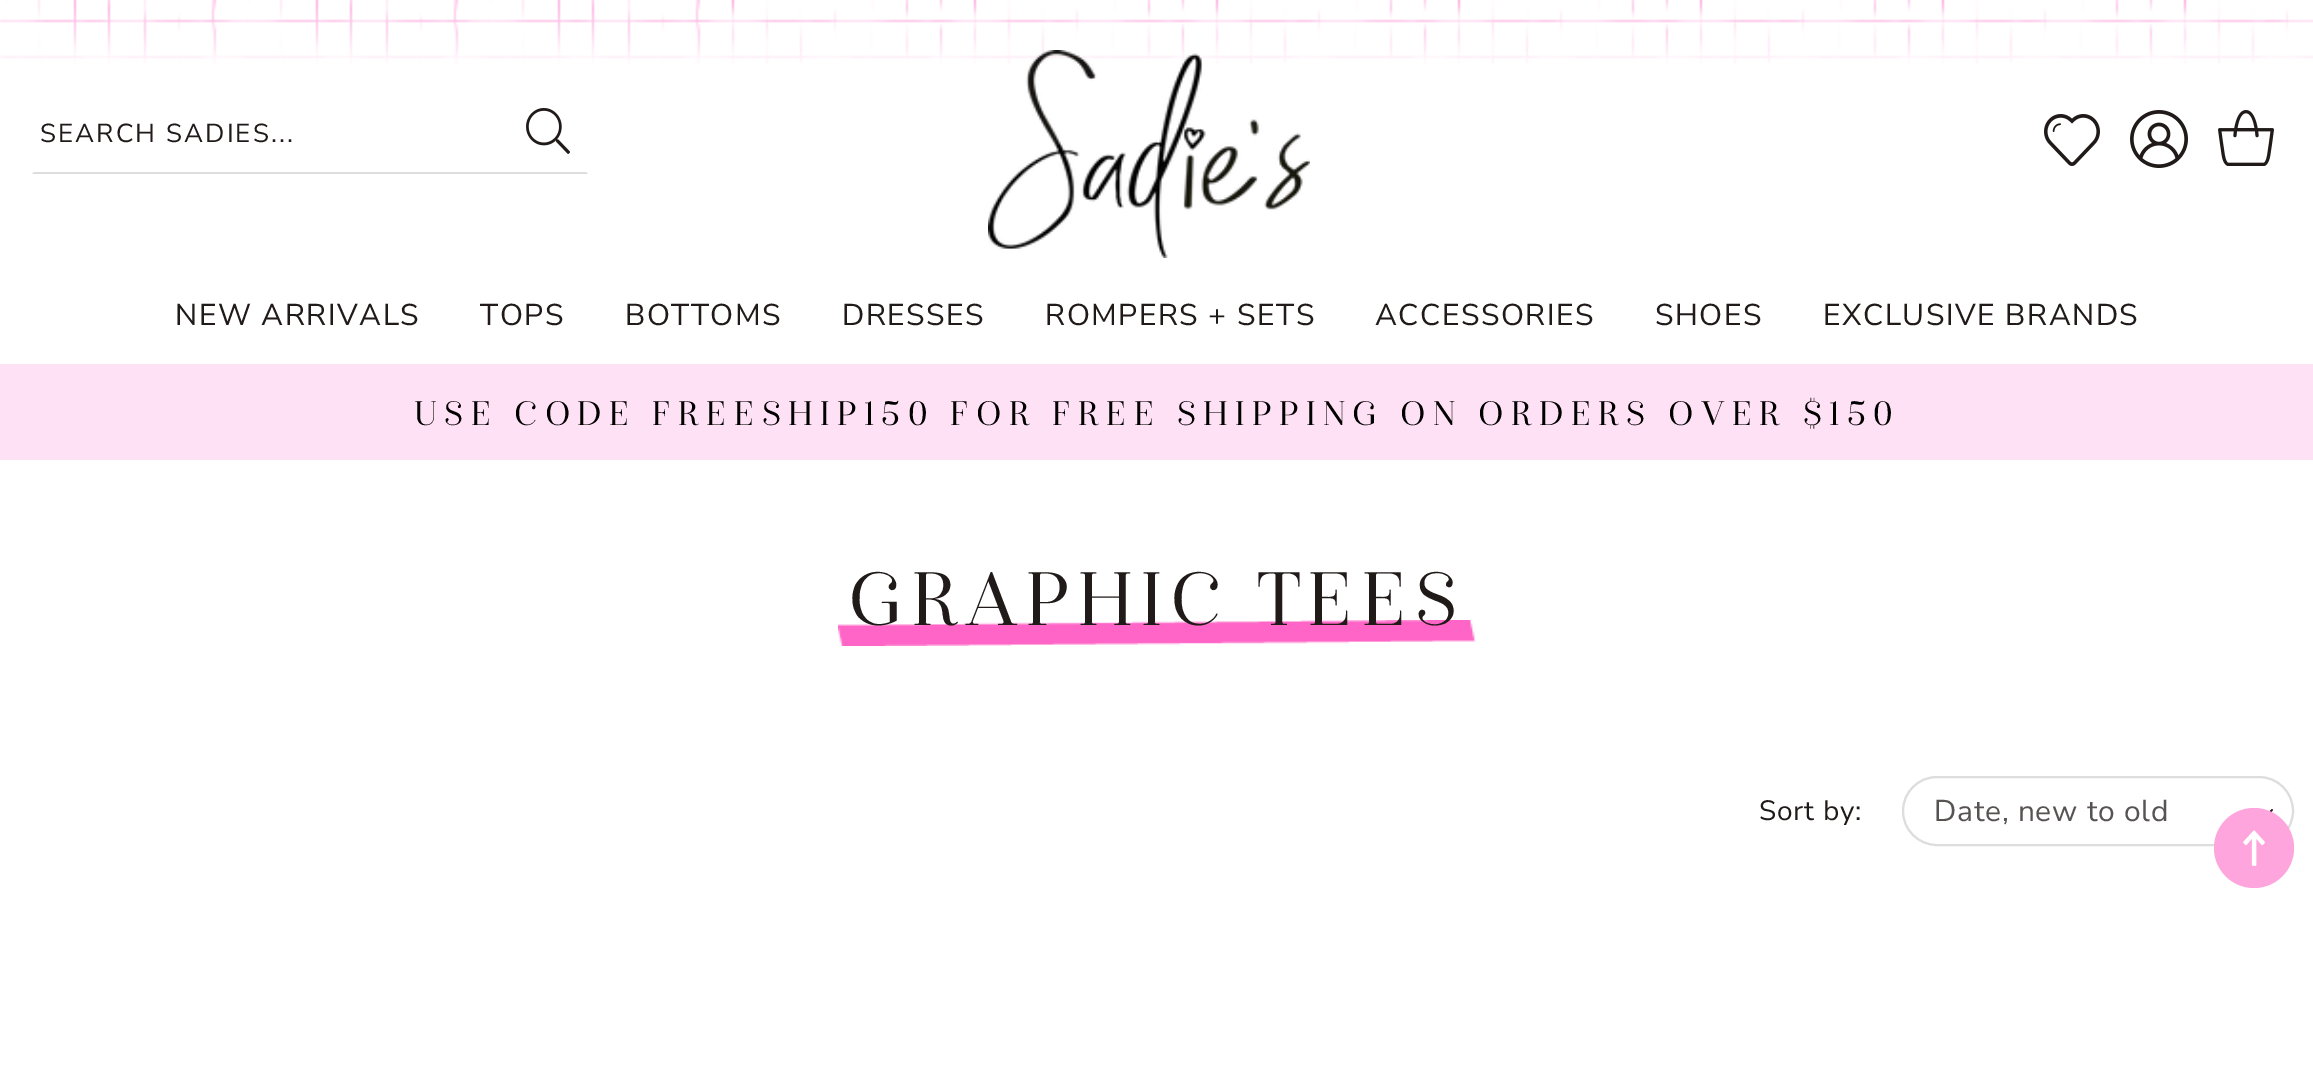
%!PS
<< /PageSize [2313 1080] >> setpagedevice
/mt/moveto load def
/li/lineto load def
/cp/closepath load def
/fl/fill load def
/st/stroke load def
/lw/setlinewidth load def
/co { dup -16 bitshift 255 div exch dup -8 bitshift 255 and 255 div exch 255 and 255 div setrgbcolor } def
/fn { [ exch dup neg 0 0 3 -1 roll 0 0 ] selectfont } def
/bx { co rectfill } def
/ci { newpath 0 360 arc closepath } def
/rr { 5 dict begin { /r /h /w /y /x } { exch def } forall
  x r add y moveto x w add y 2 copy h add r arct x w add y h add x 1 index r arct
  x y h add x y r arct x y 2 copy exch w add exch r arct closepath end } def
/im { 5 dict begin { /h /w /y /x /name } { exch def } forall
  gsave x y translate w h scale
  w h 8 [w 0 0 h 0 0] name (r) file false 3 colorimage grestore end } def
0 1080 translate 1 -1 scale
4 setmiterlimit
0 0 2313 1080 16#FFFFFF bx
(media/1.raw) 0 0 2313 65 im
(media/2.raw) 526 108 44 46 im
16#DDDDDD co
588 174 mt 32 174 li 34 172 li 586 172 li cp fl
(media/3.raw) 988 50 322 208 im
(media/4.raw) 2044 114 56 52 im
(media/5.raw) 2130 110 58 58 im
(media/6.raw) 2218 110 56 56 im
0 364 2313 96 16#FFE1F5 bx
(media/7.raw) 838 620 638 26 im
16#DDDDDD co
2 lw
1903 777 390 68 34 rr st
(media/8.raw) 2269 809 4 4 im
16#FEA5DD co
2254 848 40 ci fl
(media/9.raw) 2243 830 22 36 im
/NunitoSans-Regular 26 fn
16#201A19 co
40 142 mt 2.1 0 (SEARCH SADIES...) ashow
/NunitoSans-Regular 30 fn
175 325 mt 1.5 0 (NEW ARRIVALS) ashow
480 325 mt 1.5 0 (TOPS) ashow
625 325 mt 1.5 0 (BOTTOMS) ashow
842 325 mt 1.5 0 (DRESSES) ashow
1045 325 mt 1.5 0 (ROMPERS + SETS) ashow
1375 325 mt 1.5 0 (ACCESSORIES) ashow
1655 325 mt 1.5 0 (SHOES) ashow
1823 325 mt 1.5 0 (EXCLUSIVE BRANDS) ashow
/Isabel-Light 36 fn
16#000000 co
414 425 mt 7.2 0 (USE CODE FREESHIP150 FOR FREE SHIPPING ON ORDERS OVER $150) ashow
/Isabel-Light 80 fn
16#201A19 co
848 625 mt 8 0 (GRAPHIC TEES) ashow
/NunitoSans-Regular 28 fn
1759 820 mt .75 0 (Sort by:) ashow
/NunitoSans-Regular 30 fn
16#585353 co
1934 821 mt .75 0 (Date, new to old) ashow
showpage
